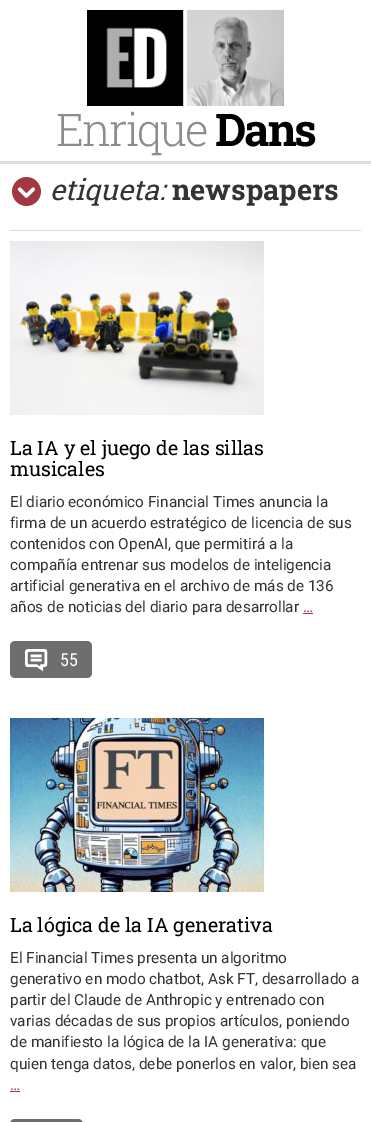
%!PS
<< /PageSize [371 1122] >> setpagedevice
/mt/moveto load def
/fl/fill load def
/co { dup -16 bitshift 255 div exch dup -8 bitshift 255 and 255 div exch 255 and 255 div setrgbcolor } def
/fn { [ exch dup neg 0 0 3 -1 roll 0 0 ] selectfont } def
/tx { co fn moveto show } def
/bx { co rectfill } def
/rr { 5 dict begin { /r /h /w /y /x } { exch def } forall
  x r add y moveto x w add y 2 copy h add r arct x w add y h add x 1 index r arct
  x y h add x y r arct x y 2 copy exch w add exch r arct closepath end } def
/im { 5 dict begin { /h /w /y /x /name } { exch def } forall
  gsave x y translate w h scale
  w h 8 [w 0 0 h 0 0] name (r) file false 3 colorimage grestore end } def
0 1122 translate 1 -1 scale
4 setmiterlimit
0 0 371 1122 16#FFFFFF bx
0 161 371 3 16#DDDDDD bx
(media/1.raw) 87 10 197 96 im
(media/2.raw) 12 177 29 29 im
10 230 351 1 16#DDDDDD bx
(media/3.raw) 10 241 254 174 im
303 613 10 1 16#A23842 bx
16#6E6E6E co
10 641 82 37 5 rr fl
(media/4.raw) 25 649 23 23 im
(media/5.raw) 10 718 254 174 im
10 1091 10 1 16#A23842 bx
16#6E6E6E co
10 1119 73 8 5 rr fl
/RobotoSlab-Light 45 fn
16#8C8C8C co
56 146 mt -2 0 (Enrique) ashow
/RobotoSlab-Bold 45 fn
16#000000 co
215 146 mt -2 0 (Dans) ashow
(etiqueta:) 50 200 /RobotoSlab-Italic 28.75 16#333333 tx
(newspapers) 172 200 /RobotoSlab-Bold 28.75 16#333333 tx
(La IA y el juego de las sillas) 10 455 /RobotoSlab-Regular 19.75 16#000000 tx
(musicales) 10 476 /RobotoSlab-Regular 19.75 16#000000 tx
(El diario económico Financial Times anuncia la) 10 507 /Roboto-Regular 15.3 16#333333 tx
(firma de un acuerdo estratégico de licencia de sus) 10 528 /Roboto-Regular 15.3 16#333333 tx
(contenidos con OpenAI, que permitirá a la) 10 549 /Roboto-Regular 15.3 16#333333 tx
(compañía entrenar sus modelos de inteligencia) 10 570 /Roboto-Regular 15.3 16#333333 tx
(artificial generativa en el archivo de más de 136) 10 591 /Roboto-Regular 15.3 16#333333 tx
(años de noticias del diario para desarrollar) 10 612 /Roboto-Regular 15.3 16#333333 tx
(…) 303 612 /Roboto-Regular 15.3 16#A23842 tx
(55) 60 666 /RobotoCondensed-Regular 18 16#FFFFFF tx
(La lógica de la IA generativa) 10 932 /RobotoSlab-Regular 19.75 16#000000 tx
(El Financial Times presenta un algoritmo) 10 963 /Roboto-Regular 15.3 16#333333 tx
(generativo en modo chatbot, Ask FT, desarrollado a) 10 984 /Roboto-Regular 15.3 16#333333 tx
(partir del Claude de Anthropic y entrenado con) 10 1005 /Roboto-Regular 15.3 16#333333 tx
(varias décadas de sus propios artículos, poniendo) 10 1026 /Roboto-Regular 15.3 16#333333 tx
(de manifiesto la lógica de la IA generativa: que) 10 1047 /Roboto-Regular 15.3 16#333333 tx
(quien tenga datos, debe ponerlos en valor, bien sea) 10 1069 /Roboto-Regular 15.3 16#333333 tx
(…) 10 1090 /Roboto-Regular 15.3 16#A23842 tx
showpage
